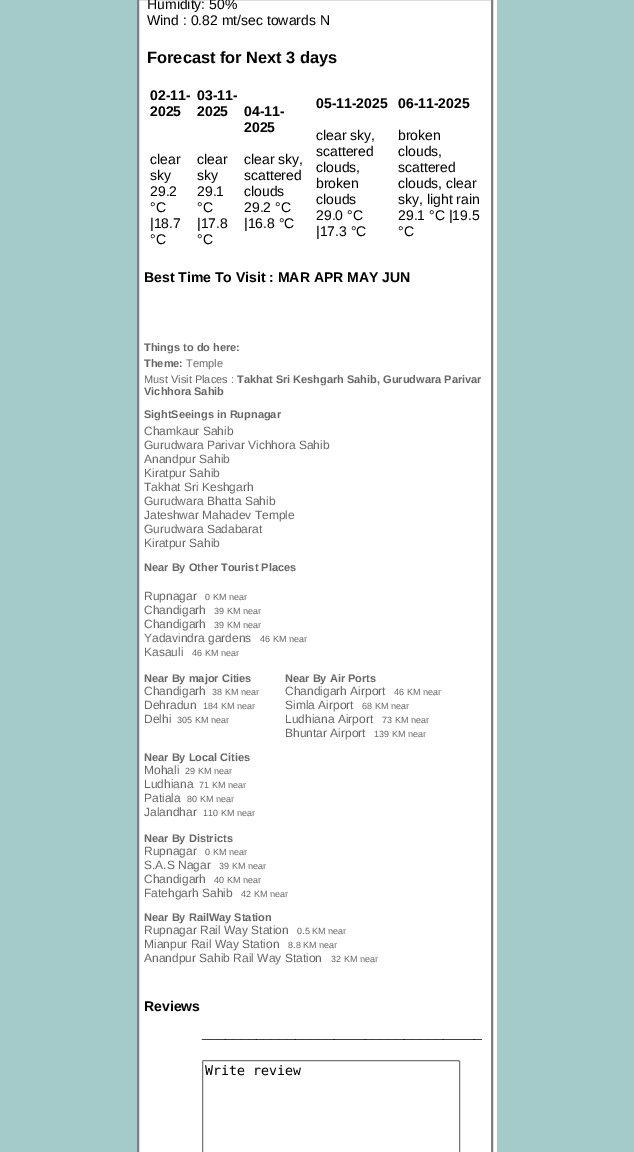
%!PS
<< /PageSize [634 1152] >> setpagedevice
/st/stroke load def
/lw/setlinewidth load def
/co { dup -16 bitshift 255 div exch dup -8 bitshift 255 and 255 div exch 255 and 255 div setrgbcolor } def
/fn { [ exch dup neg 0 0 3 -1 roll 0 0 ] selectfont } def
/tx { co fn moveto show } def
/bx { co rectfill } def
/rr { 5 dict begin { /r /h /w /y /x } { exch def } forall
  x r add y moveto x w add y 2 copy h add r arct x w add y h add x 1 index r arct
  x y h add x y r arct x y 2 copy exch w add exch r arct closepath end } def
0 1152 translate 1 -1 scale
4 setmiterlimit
0 0 634 1152 16#A4CAC9 bx
139 0 358 1152 16#FFFFFF bx
16#808080 co
2 lw
138 -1 354 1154 rectstroke
16#767676 co
1 lw
202.5 1060.5 257 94 1.5 rr st
(Humidity: 50%) 147 9 /LiberationSans-Regular 14 16#000000 tx
(Wind : 0.82 mt/sec towards N) 147 25 /LiberationSans-Regular 14 16#000000 tx
(Forecast for Next 3 days) 147 63 /LiberationSans-Bold 16.4 16#000000 tx
(02-11-) 150 100 /LiberationSans-Bold 14 16#000000 tx
(2025) 150 116 /LiberationSans-Bold 14 16#000000 tx
(clear) 150 164 /LiberationSans-Regular 14 16#000000 tx
(sky) 150 180 /LiberationSans-Regular 14 16#000000 tx
(29.2) 150 196 /LiberationSans-Regular 14 16#000000 tx
(°C) 150 212 /LiberationSans-Regular 14 16#000000 tx
(|18.7) 150 228 /LiberationSans-Regular 14 16#000000 tx
(°C) 150 244 /LiberationSans-Regular 14 16#000000 tx
(03-11-) 197 100 /LiberationSans-Bold 14 16#000000 tx
(2025) 197 116 /LiberationSans-Bold 14 16#000000 tx
(clear) 197 164 /LiberationSans-Regular 14 16#000000 tx
(sky) 197 180 /LiberationSans-Regular 14 16#000000 tx
(29.1) 197 196 /LiberationSans-Regular 14 16#000000 tx
(°C) 197 212 /LiberationSans-Regular 14 16#000000 tx
(|17.8) 197 228 /LiberationSans-Regular 14 16#000000 tx
(°C) 197 244 /LiberationSans-Regular 14 16#000000 tx
(04-11-) 244 116 /LiberationSans-Bold 14 16#000000 tx
(2025) 244 132 /LiberationSans-Bold 14 16#000000 tx
(clear sky,) 244 164 /LiberationSans-Regular 14 16#000000 tx
(scattered) 244 180 /LiberationSans-Regular 14 16#000000 tx
(clouds) 244 196 /LiberationSans-Regular 14 16#000000 tx
(29.2 °C) 244 212 /LiberationSans-Regular 14 16#000000 tx
(|16.8 °C) 244 228 /LiberationSans-Regular 14 16#000000 tx
(05-11-2025) 316 108 /LiberationSans-Bold 14 16#000000 tx
(clear sky,) 316 140 /LiberationSans-Regular 14 16#000000 tx
(scattered) 316 156 /LiberationSans-Regular 14 16#000000 tx
(clouds,) 316 172 /LiberationSans-Regular 14 16#000000 tx
(broken) 316 188 /LiberationSans-Regular 14 16#000000 tx
(clouds) 316 204 /LiberationSans-Regular 14 16#000000 tx
(29.0 °C) 316 220 /LiberationSans-Regular 14 16#000000 tx
(|17.3 °C) 316 236 /LiberationSans-Regular 14 16#000000 tx
(06-11-2025) 398 108 /LiberationSans-Bold 14 16#000000 tx
(broken) 398 140 /LiberationSans-Regular 14 16#000000 tx
(clouds,) 398 156 /LiberationSans-Regular 14 16#000000 tx
(scattered) 398 172 /LiberationSans-Regular 14 16#000000 tx
(clouds, clear) 398 188 /LiberationSans-Regular 14 16#000000 tx
(sky, light rain) 398 204 /LiberationSans-Regular 14 16#000000 tx
(29.1 °C |19.5) 398 220 /LiberationSans-Regular 14 16#000000 tx
(°C) 398 236 /LiberationSans-Regular 14 16#000000 tx
(Best Time To Visit : MAR APR MAY JUN) 144 282 /LiberationSans-Bold 14 16#000000 tx
(Things to do here:) 144 351 /LiberationSans-Bold 11 16#666666 tx
(Theme:) 144 367 /LiberationSans-Bold 11 16#666666 tx
(Temple) 186 367 /LiberationSans-Regular 11 16#666666 tx
(Must Visit Places :) 144 383 /LiberationSans-Regular 11 16#666666 tx
(Takhat Sri Keshgarh Sahib, Gurudwara Parivar) 237 383 /LiberationSans-Bold 11 16#666666 tx
(Vichhora Sahib) 144 395 /LiberationSans-Bold 11 16#666666 tx
(SightSeeings in Rupnagar) 144 418 /LiberationSans-Bold 11 16#666666 tx
(Chamkaur Sahib) 144 435 /LiberationSans-Regular 12 16#666666 tx
(Gurudwara Parivar Vichhora Sahib) 144 449 /LiberationSans-Regular 12 16#666666 tx
(Anandpur Sahib) 144 463 /LiberationSans-Regular 12 16#666666 tx
(Kiratpur Sahib) 144 477 /LiberationSans-Regular 12 16#666666 tx
(Takhat Sri Keshgarh) 144 491 /LiberationSans-Regular 12 16#666666 tx
(Gurudwara Bhatta Sahib) 144 505 /LiberationSans-Regular 12 16#666666 tx
(Jateshwar Mahadev Temple) 144 519 /LiberationSans-Regular 12 16#666666 tx
(Gurudwara Sadabarat) 144 533 /LiberationSans-Regular 12 16#666666 tx
(Kiratpur Sahib) 144 547 /LiberationSans-Regular 12 16#666666 tx
(Near By Other Tourist Places) 144 571 /LiberationSans-Bold 11 16#666666 tx
(Rupnagar) 144 600 /LiberationSans-Regular 12 16#666666 tx
(0 KM near) 205 600 /LiberationSans-Regular 9 16#666666 tx
(Chandigarh) 144 614 /LiberationSans-Regular 12 16#666666 tx
(39 KM near) 214 614 /LiberationSans-Regular 9 16#666666 tx
(Chandigarh) 144 628 /LiberationSans-Regular 12 16#666666 tx
(39 KM near) 214 628 /LiberationSans-Regular 9 16#666666 tx
(Yadavindra gardens) 144 642 /LiberationSans-Regular 12 16#666666 tx
(46 KM near) 260 642 /LiberationSans-Regular 9 16#666666 tx
(Kasauli) 144 656 /LiberationSans-Regular 12 16#666666 tx
(46 KM near) 192 656 /LiberationSans-Regular 9 16#666666 tx
(Near By major Cities) 144 682 /LiberationSans-Bold 11 16#666666 tx
(Chandigarh) 144 695 /LiberationSans-Regular 12 16#666666 tx
(38 KM near) 212 695 /LiberationSans-Regular 9 16#666666 tx
(Dehradun) 144 709 /LiberationSans-Regular 12 16#666666 tx
(184 KM near) 203 709 /LiberationSans-Regular 9 16#666666 tx
(Delhi) 144 723 /LiberationSans-Regular 12 16#666666 tx
(305 KM near) 177 723 /LiberationSans-Regular 9 16#666666 tx
(Near By Air Ports) 285 682 /LiberationSans-Bold 11 16#666666 tx
(Chandigarh Airport) 285 695 /LiberationSans-Regular 12 16#666666 tx
(46 KM near) 394 695 /LiberationSans-Regular 9 16#666666 tx
(Simla Airport) 285 709 /LiberationSans-Regular 12 16#666666 tx
(68 KM near) 362 709 /LiberationSans-Regular 9 16#666666 tx
(Ludhiana Airport) 285 723 /LiberationSans-Regular 12 16#666666 tx
(73 KM near) 382 723 /LiberationSans-Regular 9 16#666666 tx
(Bhuntar Airport) 285 737 /LiberationSans-Regular 12 16#666666 tx
(139 KM near) 374 737 /LiberationSans-Regular 9 16#666666 tx
(Near By Local Cities) 144 761 /LiberationSans-Bold 11 16#666666 tx
(Mohali) 144 774 /LiberationSans-Regular 12 16#666666 tx
(29 KM near) 185 774 /LiberationSans-Regular 9 16#666666 tx
(Ludhiana) 144 788 /LiberationSans-Regular 12 16#666666 tx
(71 KM near) 199 788 /LiberationSans-Regular 9 16#666666 tx
(Patiala) 144 802 /LiberationSans-Regular 12 16#666666 tx
(80 KM near) 187 802 /LiberationSans-Regular 9 16#666666 tx
(Jalandhar) 144 816 /LiberationSans-Regular 12 16#666666 tx
(110 KM near) 203 816 /LiberationSans-Regular 9 16#666666 tx
(Near By Districts) 144 842 /LiberationSans-Bold 11 16#666666 tx
(Rupnagar) 144 855 /LiberationSans-Regular 12 16#666666 tx
(0 KM near) 205 855 /LiberationSans-Regular 9 16#666666 tx
(S.A.S Nagar) 144 869 /LiberationSans-Regular 12 16#666666 tx
(39 KM near) 219 869 /LiberationSans-Regular 9 16#666666 tx
(Chandigarh) 144 883 /LiberationSans-Regular 12 16#666666 tx
(40 KM near) 214 883 /LiberationSans-Regular 9 16#666666 tx
(Fatehgarh Sahib) 144 897 /LiberationSans-Regular 12 16#666666 tx
(42 KM near) 241 897 /LiberationSans-Regular 9 16#666666 tx
(Near By RailWay Station) 144 921 /LiberationSans-Bold 11 16#666666 tx
(Rupnagar Rail Way Station) 144 934 /LiberationSans-Regular 12 16#666666 tx
(0.5 KM near) 297 934 /LiberationSans-Regular 9 16#666666 tx
(Mianpur Rail Way Station) 144 948 /LiberationSans-Regular 12 16#666666 tx
(8.8 KM near) 288 948 /LiberationSans-Regular 9 16#666666 tx
(Anandpur Sahib Rail Way Station) 144 962 /LiberationSans-Regular 12 16#666666 tx
(32 KM near) 331 962 /LiberationSans-Regular 9 16#666666 tx
(Reviews) 144 1011 /LiberationSans-Bold 14 16#000000 tx
(____________________________________) 202 1037 /LiberationSans-Regular 14 16#000000 tx
(Write review) 205 1075 /DejaVuSansMono-Regular 13.25 16#000000 tx
showpage
